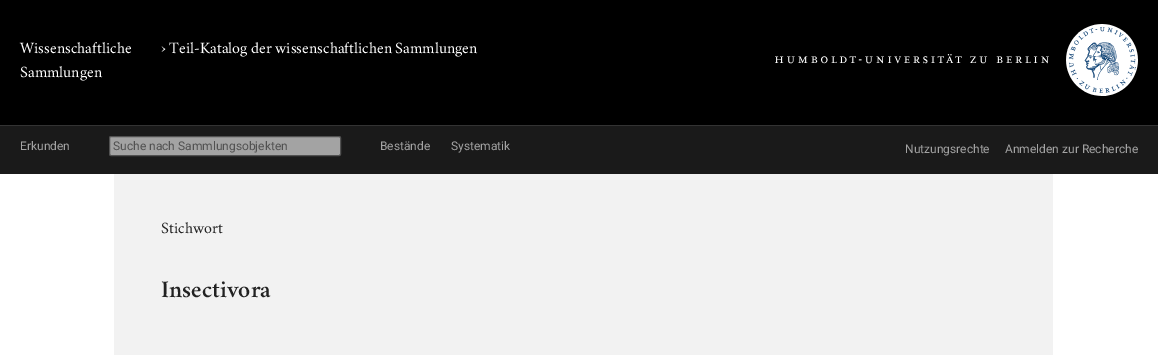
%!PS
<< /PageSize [1158 355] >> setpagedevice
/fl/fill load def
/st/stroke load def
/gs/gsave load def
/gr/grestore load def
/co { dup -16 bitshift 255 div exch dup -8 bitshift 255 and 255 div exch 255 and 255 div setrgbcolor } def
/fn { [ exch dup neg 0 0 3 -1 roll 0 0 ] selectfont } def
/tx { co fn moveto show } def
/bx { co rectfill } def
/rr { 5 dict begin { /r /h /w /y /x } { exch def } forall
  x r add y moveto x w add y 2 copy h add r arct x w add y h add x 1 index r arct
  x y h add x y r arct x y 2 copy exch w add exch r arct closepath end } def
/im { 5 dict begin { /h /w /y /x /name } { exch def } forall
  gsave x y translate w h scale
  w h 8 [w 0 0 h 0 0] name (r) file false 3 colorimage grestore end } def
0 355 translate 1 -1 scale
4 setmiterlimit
0 0 1158 355 16#FFFFFF bx
0 0 1158 125 16#000000 bx
(media/1.raw) 775 24 363 72 im
0 126 1158 48 16#1A1A1A bx
0 125 1158 1 16#333333 bx
16#A3A3A3 co
109.5 136.5 231 19 1.5 rr gs fl gr
16#515151 co
st
114 174 939 181 16#F2F2F2 bx
(Wissenschaftliche) 20 53 /CrimsonText-Regular 16 16#FFFFFF tx
(Sammlungen) 20 77 /CrimsonText-Regular 16 16#FFFFFF tx
(› Teil-Katalog der wissenschaftlichen Sammlungen) 161 53 /CrimsonText-Regular 16 16#FFFFFF tx
(Erkunden) 20 150 /Roboto-Regular 12 16#A3A3A3 tx
(Suche nach Sammlungsobjekten) 113 150 /Roboto-Regular 12 16#515151 tx
(Bestände) 380 150 /Roboto-Regular 12 16#A3A3A3 tx
(Systematik) 451 150 /Roboto-Regular 12 16#A3A3A3 tx
(Nutzungsrechte) 905 153 /Roboto-Regular 12 16#A3A3A3 tx
(Anmelden zur Recherche) 1005 153 /Roboto-Regular 12 16#A3A3A3 tx
(Stichwort) 161 233 /CrimsonText-Regular 16 16#222222 tx
(Insectivora) 161 297 /CrimsonText-SemiBold 24 16#222222 tx
showpage
